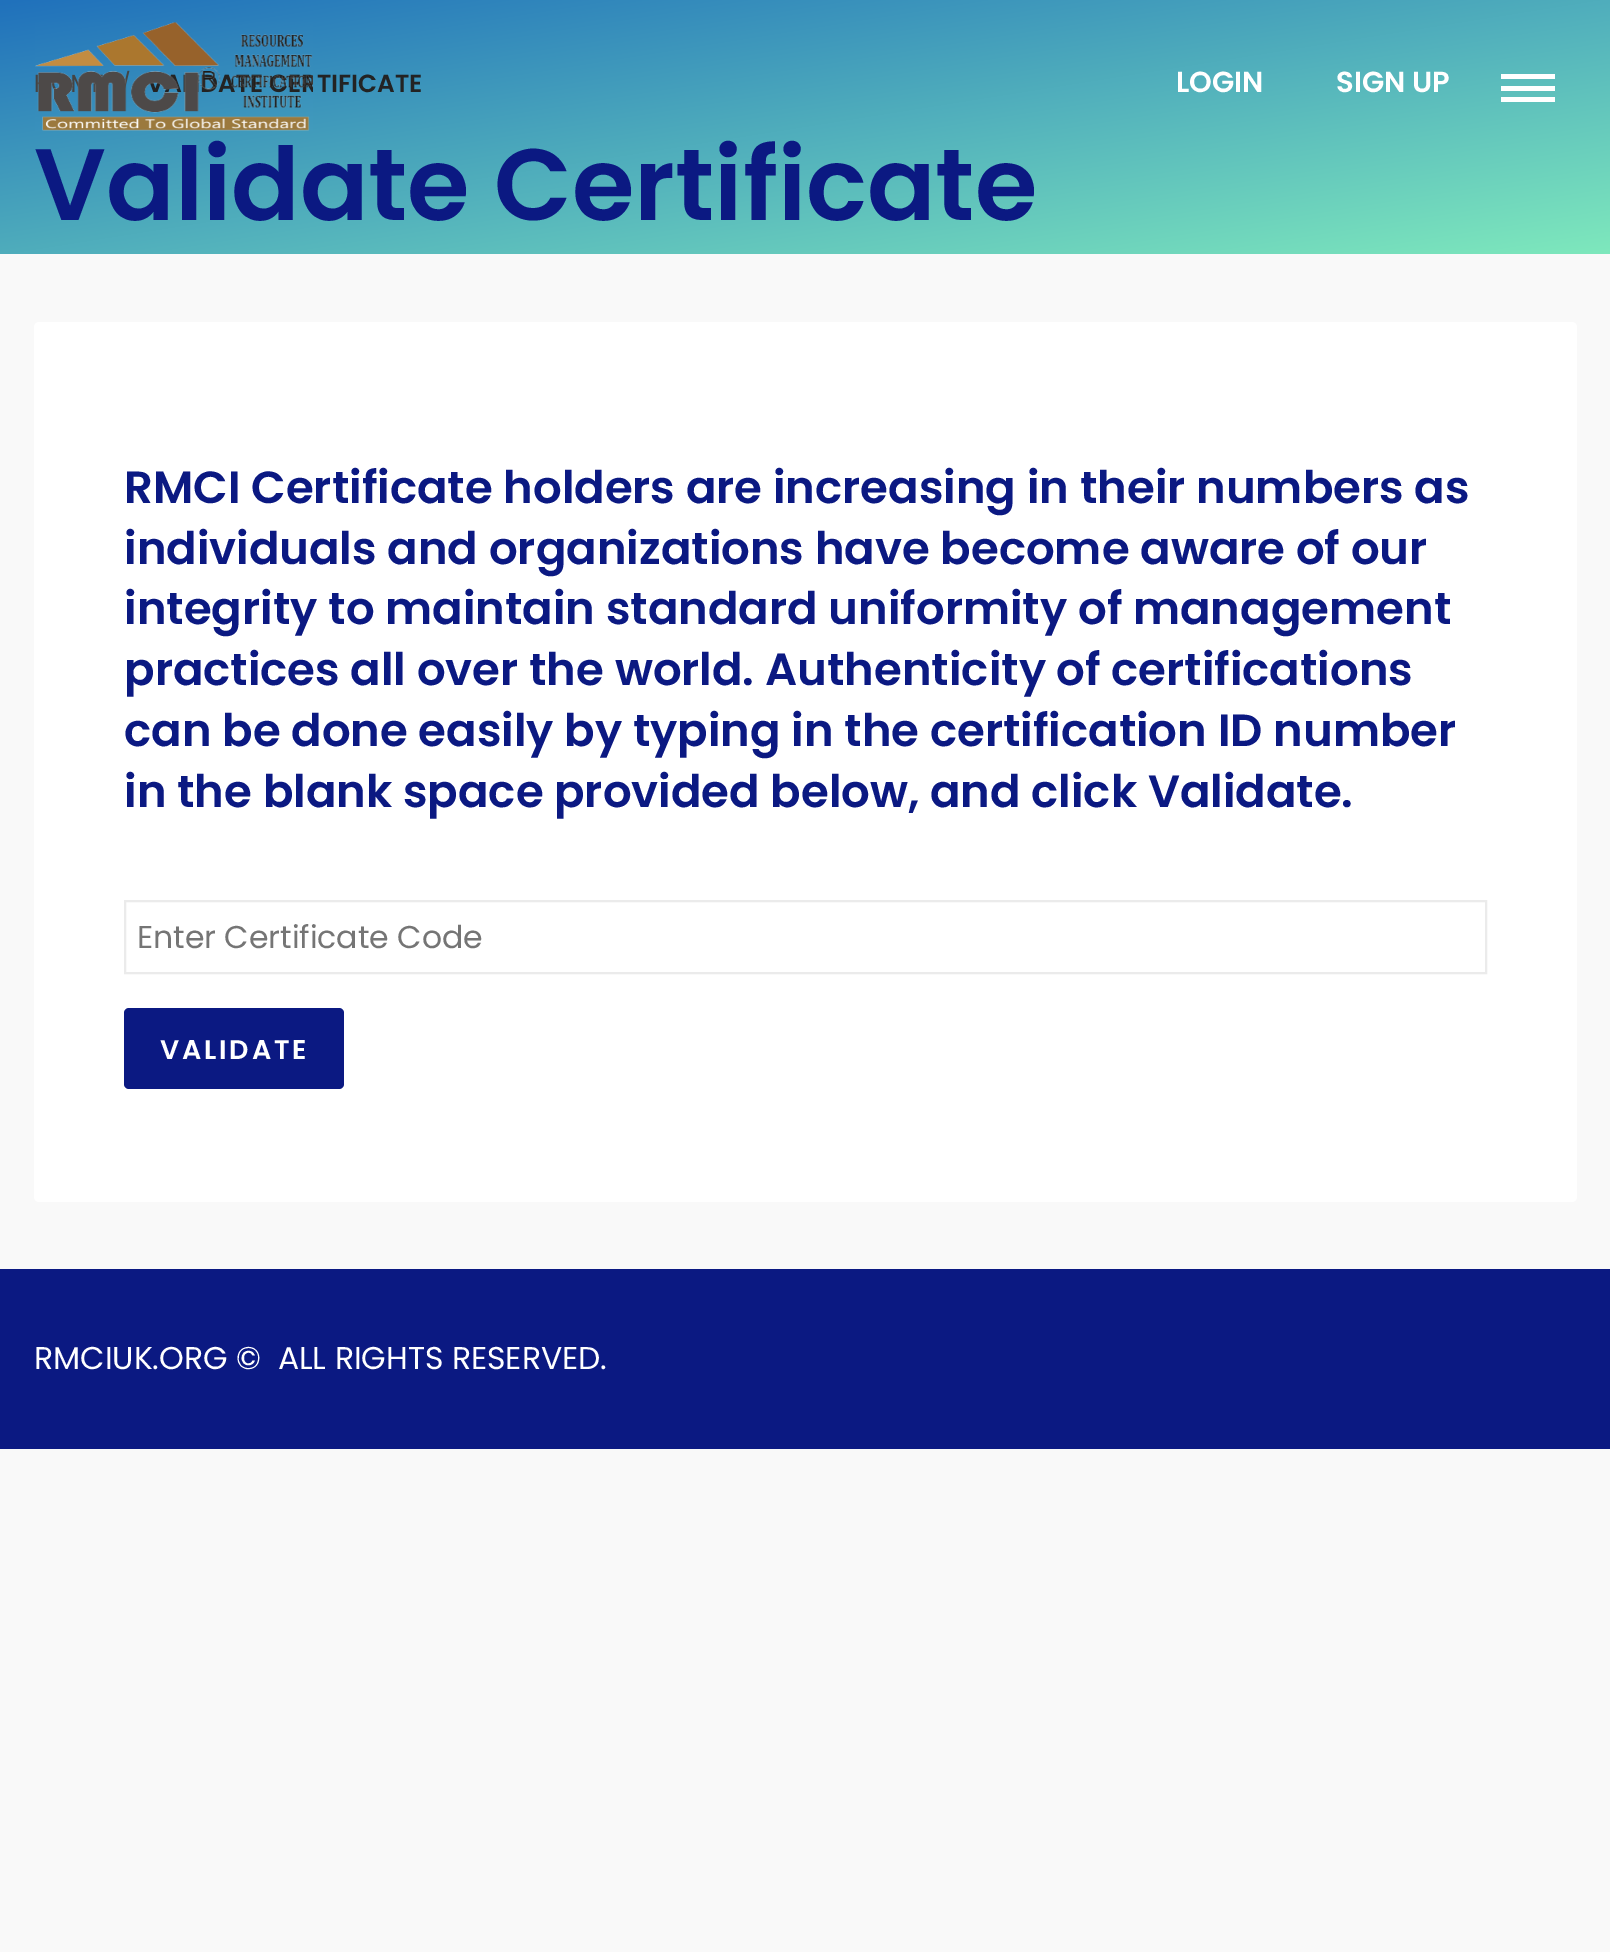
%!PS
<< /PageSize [1610 1952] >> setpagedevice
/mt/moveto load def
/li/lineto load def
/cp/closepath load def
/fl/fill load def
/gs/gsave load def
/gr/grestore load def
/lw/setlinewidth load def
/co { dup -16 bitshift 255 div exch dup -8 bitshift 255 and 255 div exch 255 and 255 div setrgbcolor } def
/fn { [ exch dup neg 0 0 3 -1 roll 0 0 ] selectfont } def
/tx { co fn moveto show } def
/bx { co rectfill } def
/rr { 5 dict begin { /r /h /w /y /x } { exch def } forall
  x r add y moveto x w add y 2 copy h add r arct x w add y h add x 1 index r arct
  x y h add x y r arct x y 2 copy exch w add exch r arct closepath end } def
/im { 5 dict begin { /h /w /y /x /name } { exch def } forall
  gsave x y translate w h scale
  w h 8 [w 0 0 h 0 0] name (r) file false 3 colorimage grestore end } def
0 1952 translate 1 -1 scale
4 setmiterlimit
0 0 1610 1952 16#F9F9F9 bx
gs 0 0 mt 1610 0 li 1610 254 li 0 254 li cp clip newpath
<< /ShadingType 2 /ColorSpace /DeviceRGB /Coords [845 375 766 -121] /Extend [true true] /Function << /FunctionType 2 /Domain [0 1] /C0 [.494 .91 .741] /C1 [.125 .443 .733] /N 1 >> >> shfill gr
1501 86 54 5 16#FFFFFF bx
1501 74 54 5 16#FFFFFF bx
1501 97 54 5 16#FFFFFF bx
34 322 1543 880 5 rr fl
16#EBEBEB co
2 lw
125 901 1361 72 rectstroke
16#0B1982 co
124 1008 220 81 5 rr fl
0 1269 1610 180 16#0B1982 bx
(A) 218 92 /Poppins-SemiBold 24.75 16#232323 tx
(TIFICATE) 317 92 /Poppins-SemiBold 24.75 16#232323 tx
(Validate Certificate) 34 220 /Poppins-SemiBold 101.25 16#0B1982 tx
(media/1.raw) 35 22 278 109 im
(LOGIN) 1176 92 /Poppins-SemiBold 29 16#FFFFFF tx
(SIGN UP) 1336 92 /Poppins-SemiBold 29 16#FFFFFF tx
(RMCI Certificate holders are increasing in their numbers as) 124 503 /Poppins-SemiBold 45 16#0B1982 tx
(individuals and organizations have become aware of our) 124 564 /Poppins-SemiBold 45 16#0B1982 tx
(integrity to maintain standard uniformity of management) 124 624 /Poppins-SemiBold 45 16#0B1982 tx
(practices all over the world. Authenticity of certifications) 124 685 /Poppins-SemiBold 45 16#0B1982 tx
(can be done easily by typing in the certification ID number) 124 746 /Poppins-SemiBold 45 16#0B1982 tx
(in the blank space provided below, and click Validate.) 124 807 /Poppins-SemiBold 45 16#0B1982 tx
(Enter Certificate Code) 137 948 /Poppins-Regular 31.5 16#757575 tx
/Poppins-SemiBold 27 fn
16#FFFFFF co
160 1059 mt 2.75 0 (VALIDATE) ashow
(RMCIUK.ORG ©  ALL RIGHTS RESERVED.) 34 1369 /Poppins-Regular 31.5 16#FFFFFF tx
showpage
